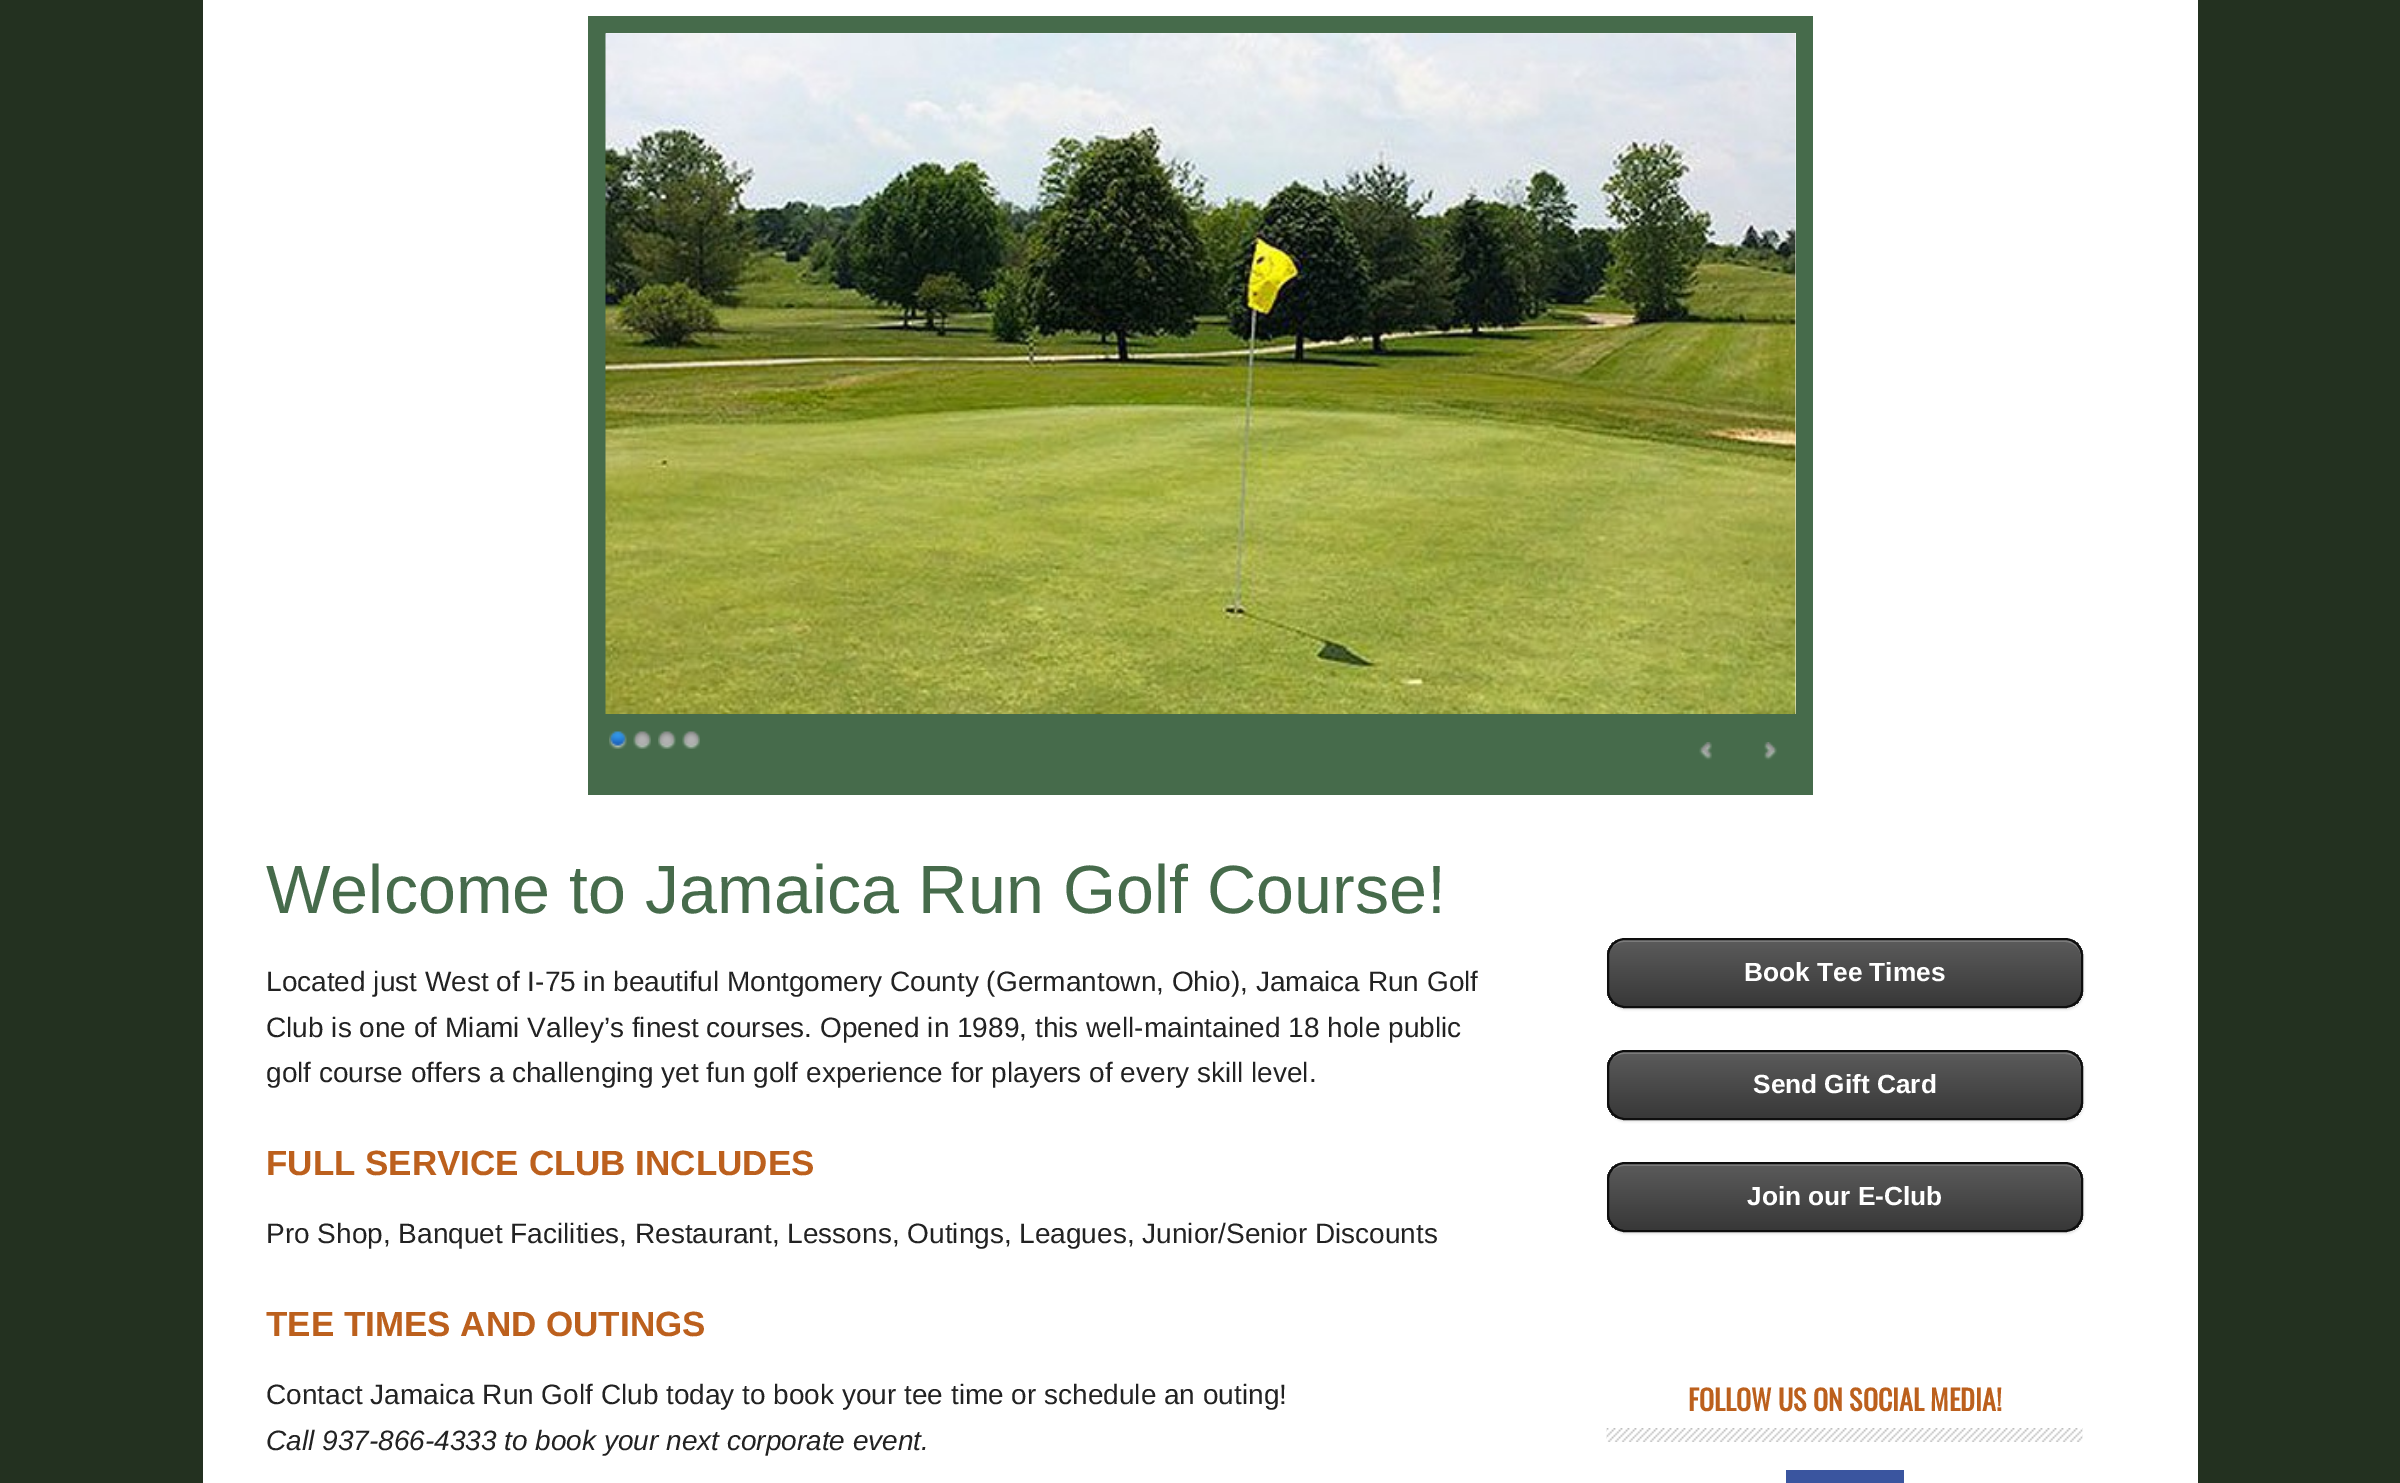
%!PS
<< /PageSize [2400 1483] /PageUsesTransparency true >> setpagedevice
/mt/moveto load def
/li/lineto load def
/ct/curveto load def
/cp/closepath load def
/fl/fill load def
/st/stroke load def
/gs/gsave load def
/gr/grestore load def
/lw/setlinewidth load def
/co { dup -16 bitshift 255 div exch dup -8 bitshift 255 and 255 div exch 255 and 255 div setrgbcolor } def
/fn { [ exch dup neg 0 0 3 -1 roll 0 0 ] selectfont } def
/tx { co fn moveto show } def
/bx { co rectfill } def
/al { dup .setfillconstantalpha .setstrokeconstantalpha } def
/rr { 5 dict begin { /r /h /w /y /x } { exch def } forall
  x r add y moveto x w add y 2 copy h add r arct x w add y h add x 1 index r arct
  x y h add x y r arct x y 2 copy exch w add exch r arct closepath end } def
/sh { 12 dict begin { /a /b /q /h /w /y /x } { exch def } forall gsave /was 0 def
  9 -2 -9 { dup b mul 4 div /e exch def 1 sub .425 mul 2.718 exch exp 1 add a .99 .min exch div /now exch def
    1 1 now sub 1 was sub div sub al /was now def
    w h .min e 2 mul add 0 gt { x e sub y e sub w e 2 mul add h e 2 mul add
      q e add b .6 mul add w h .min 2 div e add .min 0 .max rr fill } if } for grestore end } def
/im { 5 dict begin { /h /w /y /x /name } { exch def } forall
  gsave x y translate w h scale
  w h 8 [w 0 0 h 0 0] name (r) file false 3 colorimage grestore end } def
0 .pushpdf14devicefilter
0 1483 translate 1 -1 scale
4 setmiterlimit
0 0 2400 1483 16#233120 bx
203 0 1995 1483 16#FFFFFF bx
588 16 1225 779 16#466B4B bx
606 33 1190 681 16#FFFFFF bx
(media/1.raw) 605 33 1191 681 im
(media/2.raw) 1699 742 13 18 im
(media/3.raw) 1764 742 13 18 im
(media/4.raw) 609 731 18 18 im
(media/5.raw) 633 731 18 18 im
(media/6.raw) 658 731 18 18 im
(media/5.raw) 682 731 18 18 im
16#000000 co
1608 940 476 70 18 1 .1 sh
gs
1607 938 476 70 18 rr clip newpath
gs 1607 940 mt 2083 940 li 2083 1006 li 1607 1006 li cp clip newpath
<< /ShadingType 2 /ColorSpace /DeviceRGB /Coords [1845 940 1845 1006] /Extend [true true] /Function << /FunctionType 2 /Domain [0 1] /C0 [.357 .357 .357] /C1 [.22 .22 .22] /N 1 >> >> shfill gr
gr
0.2 al
16#FFFFFF co
1624 942 mt 2065 942 li 2074 942 2081 949 2081 957 ct 2081 949 2076 942 2068 940 ct 1624 940 li 1615 940 1608 948 1608 957 ct 1608 949 1615 942 1624 942 ct cp fl
1 al
16#0E0E0E co
2 lw
1608 939 474 68 17 rr st
16#000000 co
1608 1052 476 70 18 1 .1 sh
gs
1607 1050 476 70 18 rr clip newpath
gs 1607 1052 mt 2083 1052 li 2083 1118 li 1607 1118 li cp clip newpath
<< /ShadingType 2 /ColorSpace /DeviceRGB /Coords [1845 1052 1845 1118] /Extend [true true] /Function << /FunctionType 2 /Domain [0 1] /C0 [.357 .357 .357] /C1 [.22 .22 .22] /N 1 >> >> shfill gr
gr
0.2 al
16#FFFFFF co
1624 1054 mt 2065 1054 li 2074 1054 2081 1061 2081 1069 ct 2081 1061 2076 1054 2068 1052 ct 1624 1052 li 1615 1052 1608 1060 1608 1069 ct 1608 1061 1615 1054 1624 1054 ct cp fl
1 al
16#0E0E0E co
1608 1051 474 68 17 rr st
16#000000 co
1608 1164 476 70 18 1 .1 sh
gs
1607 1162 476 70 18 rr clip newpath
gs 1607 1164 mt 2083 1164 li 2083 1230 li 1607 1230 li cp clip newpath
<< /ShadingType 2 /ColorSpace /DeviceRGB /Coords [1845 1164 1845 1230] /Extend [true true] /Function << /FunctionType 2 /Domain [0 1] /C0 [.357 .357 .357] /C1 [.22 .22 .22] /N 1 >> >> shfill gr
gr
0.2 al
16#FFFFFF co
1624 1166 mt 2065 1166 li 2074 1166 2081 1173 2081 1181 ct 2081 1173 2076 1166 2068 1164 ct 1624 1164 li 1615 1164 1608 1172 1608 1181 ct 1608 1173 1615 1166 1624 1166 ct cp fl
1 al
16#0E0E0E co
1608 1163 474 68 17 rr st
(media/7.raw) 1606 1428 477 14 im
1786 1470 118 13 16#3A559F bx
(Welcome to Jamaica Run Golf Course!) 266 913 /LiberationSans-Regular 68.25 16#466B4B tx
(Located just West of I-75 in beautiful Montgomery County \(Germantown, Ohio\), Jamaica Run Golf) 266 991 /LiberationSans-Regular 28 16#222222 tx
(Club is one of Miami Valley’s finest courses. Opened in 1989, this well-maintained 18 hole public) 266 1037 /LiberationSans-Regular 28 16#222222 tx
(golf course offers a challenging yet fun golf experience for players of every skill level.) 266 1082 /LiberationSans-Regular 28 16#222222 tx
(FULL SERVICE CLUB INCLUDES) 266 1175 /LiberationSans-Bold 35 16#BC601D tx
(Pro Shop, Banquet Facilities, Restaurant, Lessons, Outings, Leagues, Junior/Senior Discounts) 266 1243 /LiberationSans-Regular 28 16#222222 tx
(TEE TIMES AND OUTINGS) 266 1336 /LiberationSans-Bold 35 16#BC601D tx
(Contact Jamaica Run Golf Club today to book your tee time or schedule an outing!) 266 1404 /LiberationSans-Regular 28 16#222222 tx
(Call 937-866-4333 to book your next corporate event.) 266 1450 /LiberationSans-Italic 28 16#222222 tx
(Book Tee Times) 1744 981 /LiberationSans-Bold 26.25 16#FFFFFF tx
(Send Gift Card) 1753 1093 /LiberationSans-Bold 26.25 16#FFFFFF tx
(Join our E-Club) 1747 1205 /LiberationSans-Bold 26.25 16#FFFFFF tx
(FOLLOW US ON SOCIAL MEDIA!) 1688 1411 /Oswald-Bold 28 16#BC601D tx
.poppdf14devicefilter showpage
